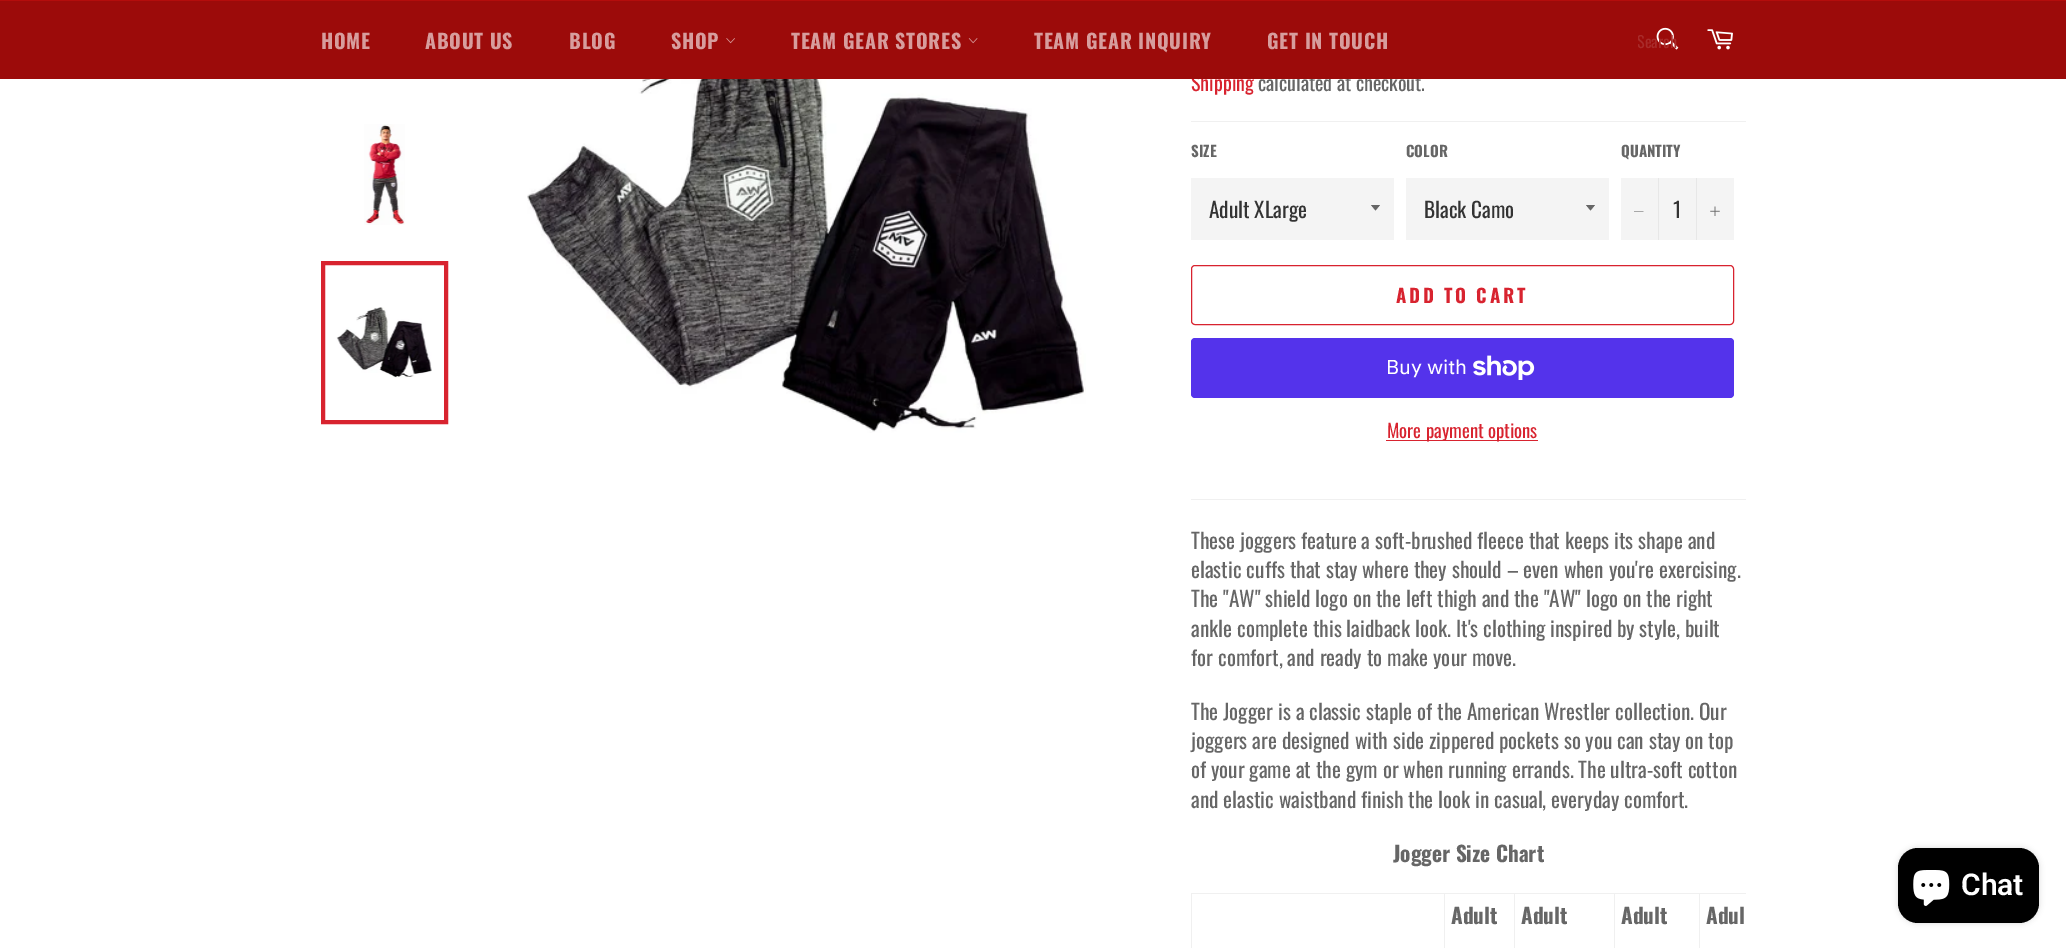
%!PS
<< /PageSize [2066 948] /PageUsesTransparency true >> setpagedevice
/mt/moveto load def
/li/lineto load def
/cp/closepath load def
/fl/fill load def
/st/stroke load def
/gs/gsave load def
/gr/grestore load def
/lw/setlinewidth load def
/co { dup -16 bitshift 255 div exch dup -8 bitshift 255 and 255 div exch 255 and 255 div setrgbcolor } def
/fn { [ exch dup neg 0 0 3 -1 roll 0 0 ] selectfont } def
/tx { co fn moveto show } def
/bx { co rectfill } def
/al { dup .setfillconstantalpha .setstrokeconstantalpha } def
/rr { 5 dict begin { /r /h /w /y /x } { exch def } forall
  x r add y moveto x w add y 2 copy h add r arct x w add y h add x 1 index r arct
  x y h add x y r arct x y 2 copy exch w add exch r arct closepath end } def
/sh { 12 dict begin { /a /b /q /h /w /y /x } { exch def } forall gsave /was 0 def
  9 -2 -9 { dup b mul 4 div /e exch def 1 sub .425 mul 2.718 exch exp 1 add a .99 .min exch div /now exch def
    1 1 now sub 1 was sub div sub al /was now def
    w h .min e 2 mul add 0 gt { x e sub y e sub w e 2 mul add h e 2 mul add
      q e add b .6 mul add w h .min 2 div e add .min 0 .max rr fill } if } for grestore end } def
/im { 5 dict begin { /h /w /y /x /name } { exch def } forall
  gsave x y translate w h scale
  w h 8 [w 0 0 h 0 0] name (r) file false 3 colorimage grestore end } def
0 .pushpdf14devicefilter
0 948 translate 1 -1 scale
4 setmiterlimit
0 0 2066 948 16#FFFFFF bx
0 0 2066 1 16#B40D0C bx
(media/5.raw) 364 124 41 101 im
(media/6.raw) 336 307 96 71 im
16#D8232F co
4 lw
323 263 123 159 rectstroke
(media/7.raw) 527 79 559 354 im
1191 121 555 1 16#F0F0F0 bx
1191 178 203 62 16#F4F4F4 bx
16#666666 co
1371 205 mt 1375.5 210.5 li 1380 205 li cp fl
1406 178 203 62 16#F4F4F4 bx
16#666666 co
1586 205 mt 1590.5 210.5 li 1595 205 li cp fl
1621 178 113 62 16#F4F4F4 bx
1658 178 1 62 16#E7E7E7 bx
16#666666 co
1643.5 211 mt 1643.5 211.5 li 1634 211.5 li 1634 211 li cp eofill
1696 178 1 62 16#E7E7E7 bx
(media/8.raw) 1710 206 10 10 im
16#D8232F co
1 lw
1191.5 265.5 542 59 3.5 rr st
16#5433EB co
1191 338 543 60 4 rr fl
(media/9.raw) 1473 355 62 25 im
1386 440 152 1 16#D8232F bx
1191 499 555 1 16#F0F0F0 bx
1699 893 47 1 16#F0F0F0 bx
1699 893 1 55 16#F0F0F0 bx
1614 893 86 1 16#F0F0F0 bx
1614 893 1 55 16#F0F0F0 bx
1514 893 101 1 16#F0F0F0 bx
1514 893 1 55 16#F0F0F0 bx
1444 893 71 1 16#F0F0F0 bx
1444 893 1 55 16#F0F0F0 bx
1191 893 254 1 16#F0F0F0 bx
1191 893 1 55 16#F0F0F0 bx
16#000000 co
1898 848 141 75 20 3 .15 sh
1898 848 141 75 20 rr fl
(media/10.raw) 1913 870 37 36 im
(Shipping) 1191 91 /Oswald-Regular 20 16#D8232F tx
(calculated at checkout.) 1258 91 /Oswald-Regular 20 16#666666 tx
0 1 2066 78 16#9C0B0A bx
(media/3.raw) 1656 27 23 23 im
gs
1638 28 40 25 rectclip
(Search) 1637 48 /Oswald-Regular 16 16#A92B2A tx
gr
(media/4.raw) 1707 29 26 21 im
/Oswald-Bold 20 fn
16#D79D9D co
1267 49 mt .75 0 (GET IN TOUCH) ashow
1034 49 mt .75 0 (TEAM GEAR INQUIRY) ashow
(media/2.raw) 968 38 10 6 im
791 49 mt .75 0 (TEAM GEAR STORES) ashow
(media/1.raw) 726 38 9 6 im
671 49 mt .75 0 (SHOP) ashow
569 49 mt .75 0 (BLOG) ashow
425 49 mt .75 0 (ABOUT US) ashow
321 49 mt .75 0 (HOME) ashow
(SIZE) 1191 157 /Oswald-Bold 15 16#666666 tx
(Adult XLarge) 1209 218 /Oswald-Regular 21.25 16#333333 tx
(COLOR) 1406 157 /Oswald-Bold 15 16#666666 tx
(Black Camo) 1424 218 /Oswald-Regular 21.25 16#333333 tx
(QUANTITY) 1621 157 /Oswald-Bold 15 16#666666 tx
(1) 1673 218 /Oswald-Regular 21.25 16#333333 tx
/Oswald-Bold 18.75 fn
16#D8232F co
1396 303 mt 2.75 0 (ADD TO CART) ashow
(Buy with) 1386 374 /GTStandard-Regular 20 16#FFFFFF tx
(More payment options) 1387 438 /Oswald-Regular 18.75 16#D8232F tx
(These joggers feature a soft-brushed fleece that keeps its shape and) 1191 549 /Oswald-Regular 21.25 16#666666 tx
(elastic cuffs that stay where they should – even when you're exercising.) 1191 578 /Oswald-Regular 21.25 16#666666 tx
(The "AW" shield logo on the left thigh and the "AW" logo on the right) 1191 607 /Oswald-Regular 21.25 16#666666 tx
(ankle complete this laidback look. It's clothing inspired by style, built) 1191 637 /Oswald-Regular 21.25 16#666666 tx
(for comfort, and ready to make your move.) 1191 666 /Oswald-Regular 21.25 16#666666 tx
(The Jogger is a classic staple of the American Wrestler collection. Our) 1191 720 /Oswald-Regular 21.25 16#666666 tx
(joggers are designed with side zippered pockets so you can stay on top) 1191 749 /Oswald-Regular 21.25 16#666666 tx
(of your game at the gym or when running errands. The ultra-soft cotton) 1191 778 /Oswald-Regular 21.25 16#666666 tx
(and elastic waistband finish the look in casual, everyday comfort.) 1191 808 /Oswald-Regular 21.25 16#666666 tx
(Jogger Size Chart) 1393 862 /Oswald-Bold 21.25 16#666666 tx
(Adult) 1451 924 /Oswald-Bold 21.25 16#666666 tx
(Adult) 1521 924 /Oswald-Bold 21.25 16#666666 tx
(Adult) 1621 924 /Oswald-Bold 21.25 16#666666 tx
(Adul) 1706 924 /Oswald-Bold 21.25 16#666666 tx
(Chat) 1961 895 /Roboto-SemiBold 30 16#FFFFFF tx
.poppdf14devicefilter showpage
